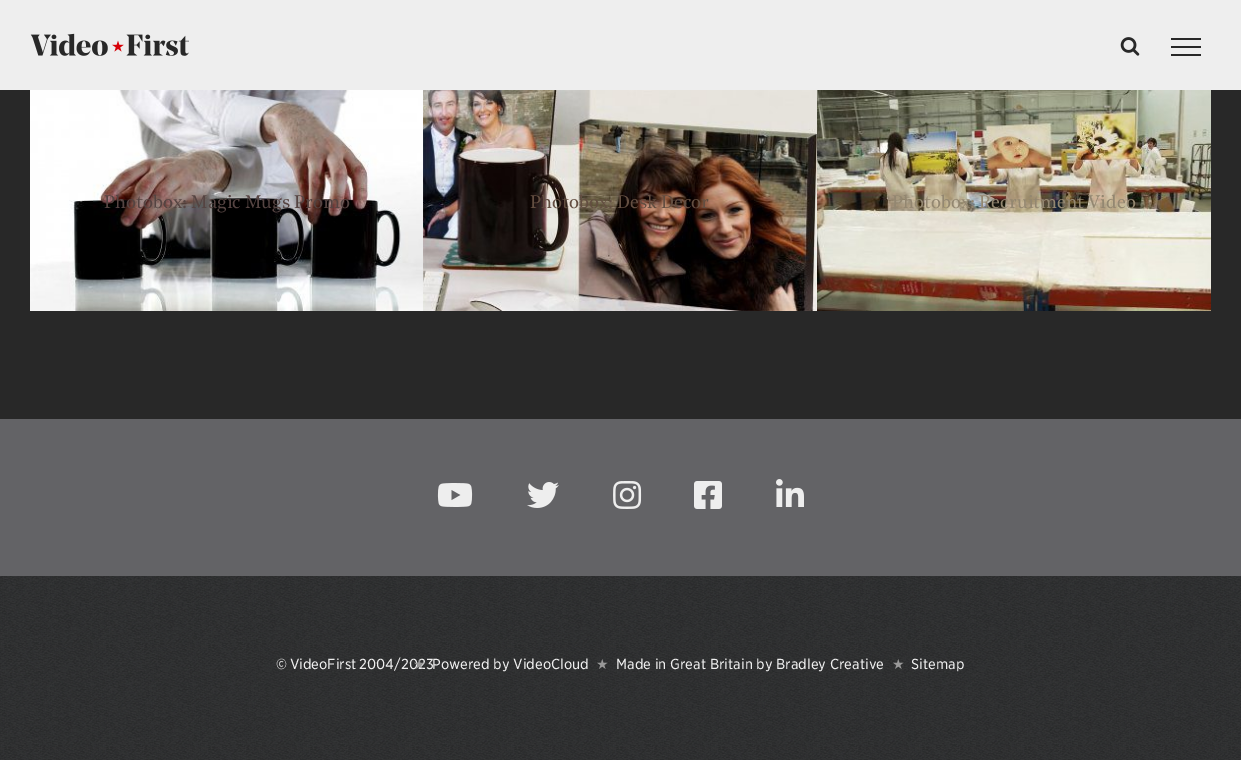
%!PS
<< /PageSize [1241 760] >> setpagedevice
/mt/moveto load def
/co { dup -16 bitshift 255 div exch dup -8 bitshift 255 and 255 div exch 255 and 255 div setrgbcolor } def
/fn { [ exch dup neg 0 0 3 -1 roll 0 0 ] selectfont } def
/tx { co fn moveto show } def
/bx { co rectfill } def
/im { 5 dict begin { /h /w /y /x /name } { exch def } forall
  gsave x y translate w h scale
  w h 8 [w 0 0 h 0 0] name (r) file false 3 colorimage grestore end } def
0 760 translate 1 -1 scale
4 setmiterlimit
0 0 1241 760 16#282828 bx
0 0 1241 90 16#EEEEEE bx
(media/1.raw) 30 33 159 23 im
(media/2.raw) 1120 37 20 19 im
1171 38 30 2 16#282828 bx
1171 46 30 2 16#282828 bx
1171 54 30 2 16#282828 bx
(media/3.raw) 30 90 393 221 im
(media/4.raw) 423 90 394 221 im
(media/5.raw) 817 90 394 221 im
0 419 1241 157 16#636366 bx
(media/6.raw) 437 483 36 24 im
(media/7.raw) 527 482 32 26 im
(media/8.raw) 613 481 29 28 im
(media/9.raw) 694 481 28 28 im
(media/10.raw) 776 479 28 28 im
(media/11.raw) 0 576 1241 184 im
(Photobox: Magic Mugs Promo) 104 208 /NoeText-Regular 18 16#554442 tx
(Photobox: Desk Decor) 530 208 /NoeText-Regular 18 16#634E41 tx
(Photobox: Recruitment Video) 892 208 /NoeText-Regular 18 16#938771 tx
/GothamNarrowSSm-Regular 14 fn
16#EEEEEE co
276 669 mt -1 0 32 (© VideoFirst 2004/2023) widthshow
(★) 413 669 /DejaVuSans-Regular 14 16#999999 tx
(Powered by VideoCloud) 432 669 /GothamNarrowSSm-Regular 14 16#EEEEEE tx
(★) 596 669 /DejaVuSans-Regular 14 16#999999 tx
(Made in Great Britain by Bradley Creative) 616 669 /GothamNarrowSSm-Regular 14 16#EEEEEE tx
(★) 892 669 /DejaVuSans-Regular 14 16#999999 tx
(Sitemap) 911 669 /GothamNarrowSSm-Regular 14 16#EEEEEE tx
showpage
